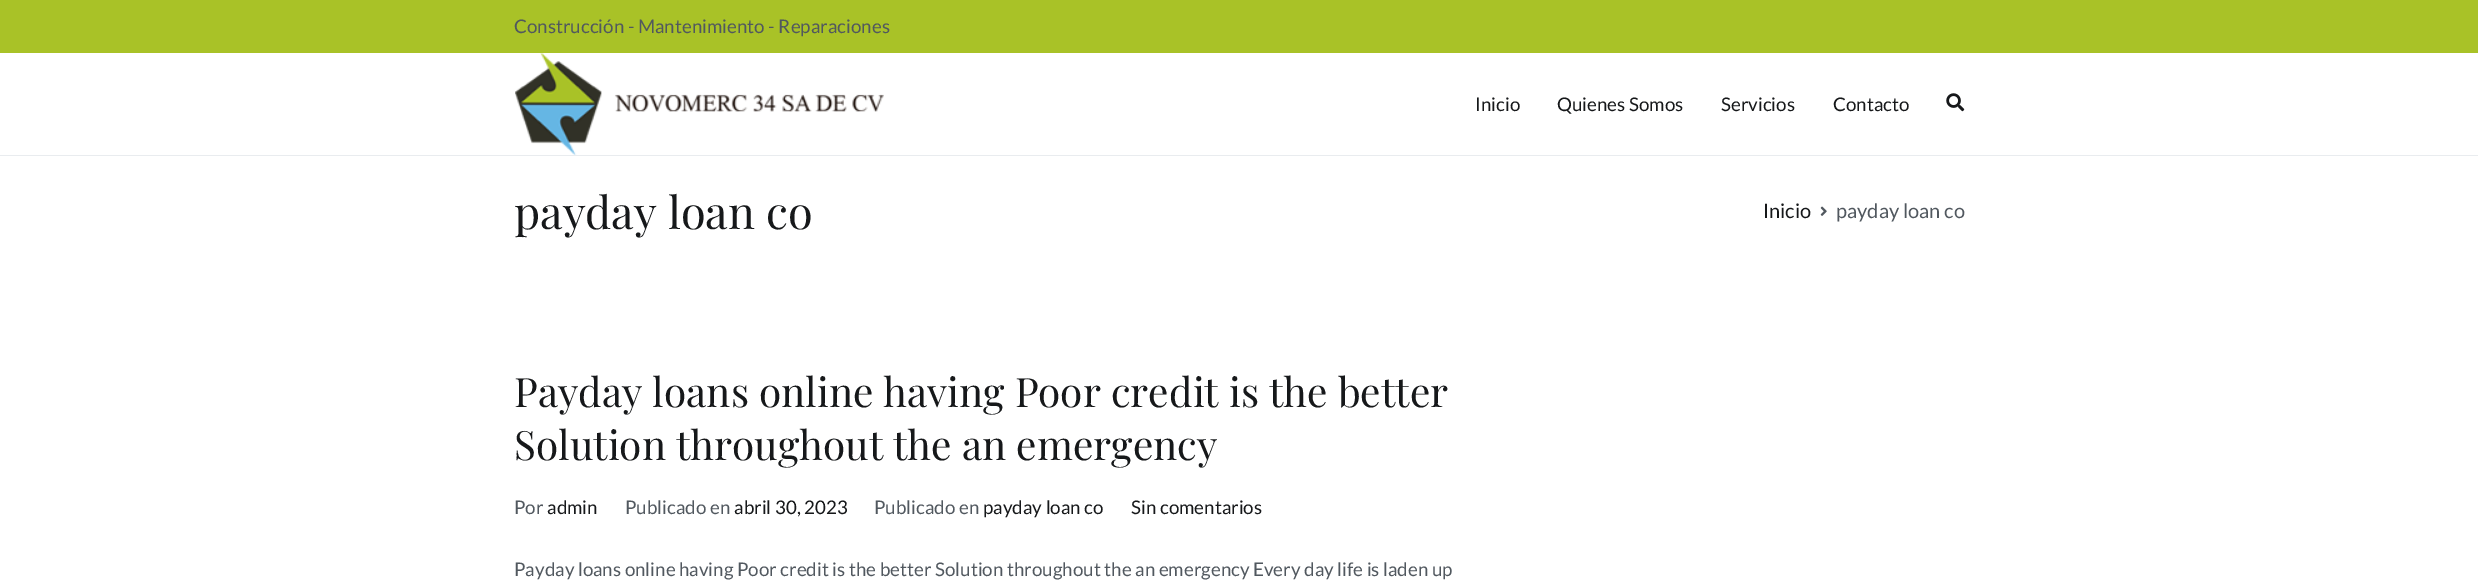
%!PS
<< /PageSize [2478 587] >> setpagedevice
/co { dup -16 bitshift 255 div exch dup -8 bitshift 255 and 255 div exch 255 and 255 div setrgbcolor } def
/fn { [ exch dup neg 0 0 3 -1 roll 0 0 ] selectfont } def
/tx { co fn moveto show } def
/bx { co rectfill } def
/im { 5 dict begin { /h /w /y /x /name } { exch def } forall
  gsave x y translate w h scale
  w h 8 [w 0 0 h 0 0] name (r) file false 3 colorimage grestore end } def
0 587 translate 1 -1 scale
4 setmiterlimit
0 0 2478 587 16#FFFFFF bx
0 155 2478 1 16#E9ECEF bx
0 0 2478 53 16#A9C227 bx
(media/1.raw) 515 53 369 102 im
(media/2.raw) 1946 93 19 19 im
(media/3.raw) 1820 206 7 10 im
(Construcción - Mantenimiento - Reparaciones) 514 33 /Lato-Regular 18.75 16#51585F tx
(Inicio) 1475 111 /Lato-Regular 18.75 16#16181A tx
(Quienes Somos) 1557 111 /Lato-Regular 18.75 16#16181A tx
(Servicios) 1721 111 /Lato-Regular 18.75 16#16181A tx
(Contacto) 1833 111 /Lato-Regular 18.75 16#16181A tx
(payday loan co) 514 229 /PlayfairDisplay-Regular 45 16#16181A tx
(Inicio) 1763 218 /Lato-Regular 20 16#16181A tx
(payday loan co) 1836 218 /Lato-Regular 20 16#51585F tx
(Payday loans online having Poor credit is the better) 514 407 /PlayfairDisplay-Regular 40.5 16#16181A tx
(Solution throughout the an emergency) 514 460 /PlayfairDisplay-Regular 40.5 16#16181A tx
(Por) 514 514 /Lato-Regular 18.75 16#51585F tx
(admin) 547 514 /Lato-Regular 18.75 16#16181A tx
(Publicado en) 625 514 /Lato-Regular 18.75 16#51585F tx
(abril 30, 2023) 734 514 /Lato-Regular 18.75 16#16181A tx
(Publicado en) 874 514 /Lato-Regular 18.75 16#51585F tx
(payday loan co) 983 514 /Lato-Regular 18.75 16#16181A tx
(Sin comentarios) 1131 514 /Lato-Regular 18.75 16#16181A tx
(Payday loans online having Poor credit is the better Solution throughout the an emergency Every day life is laden up) 514 576 /Lato-Regular 18.75 16#51585F tx
showpage
